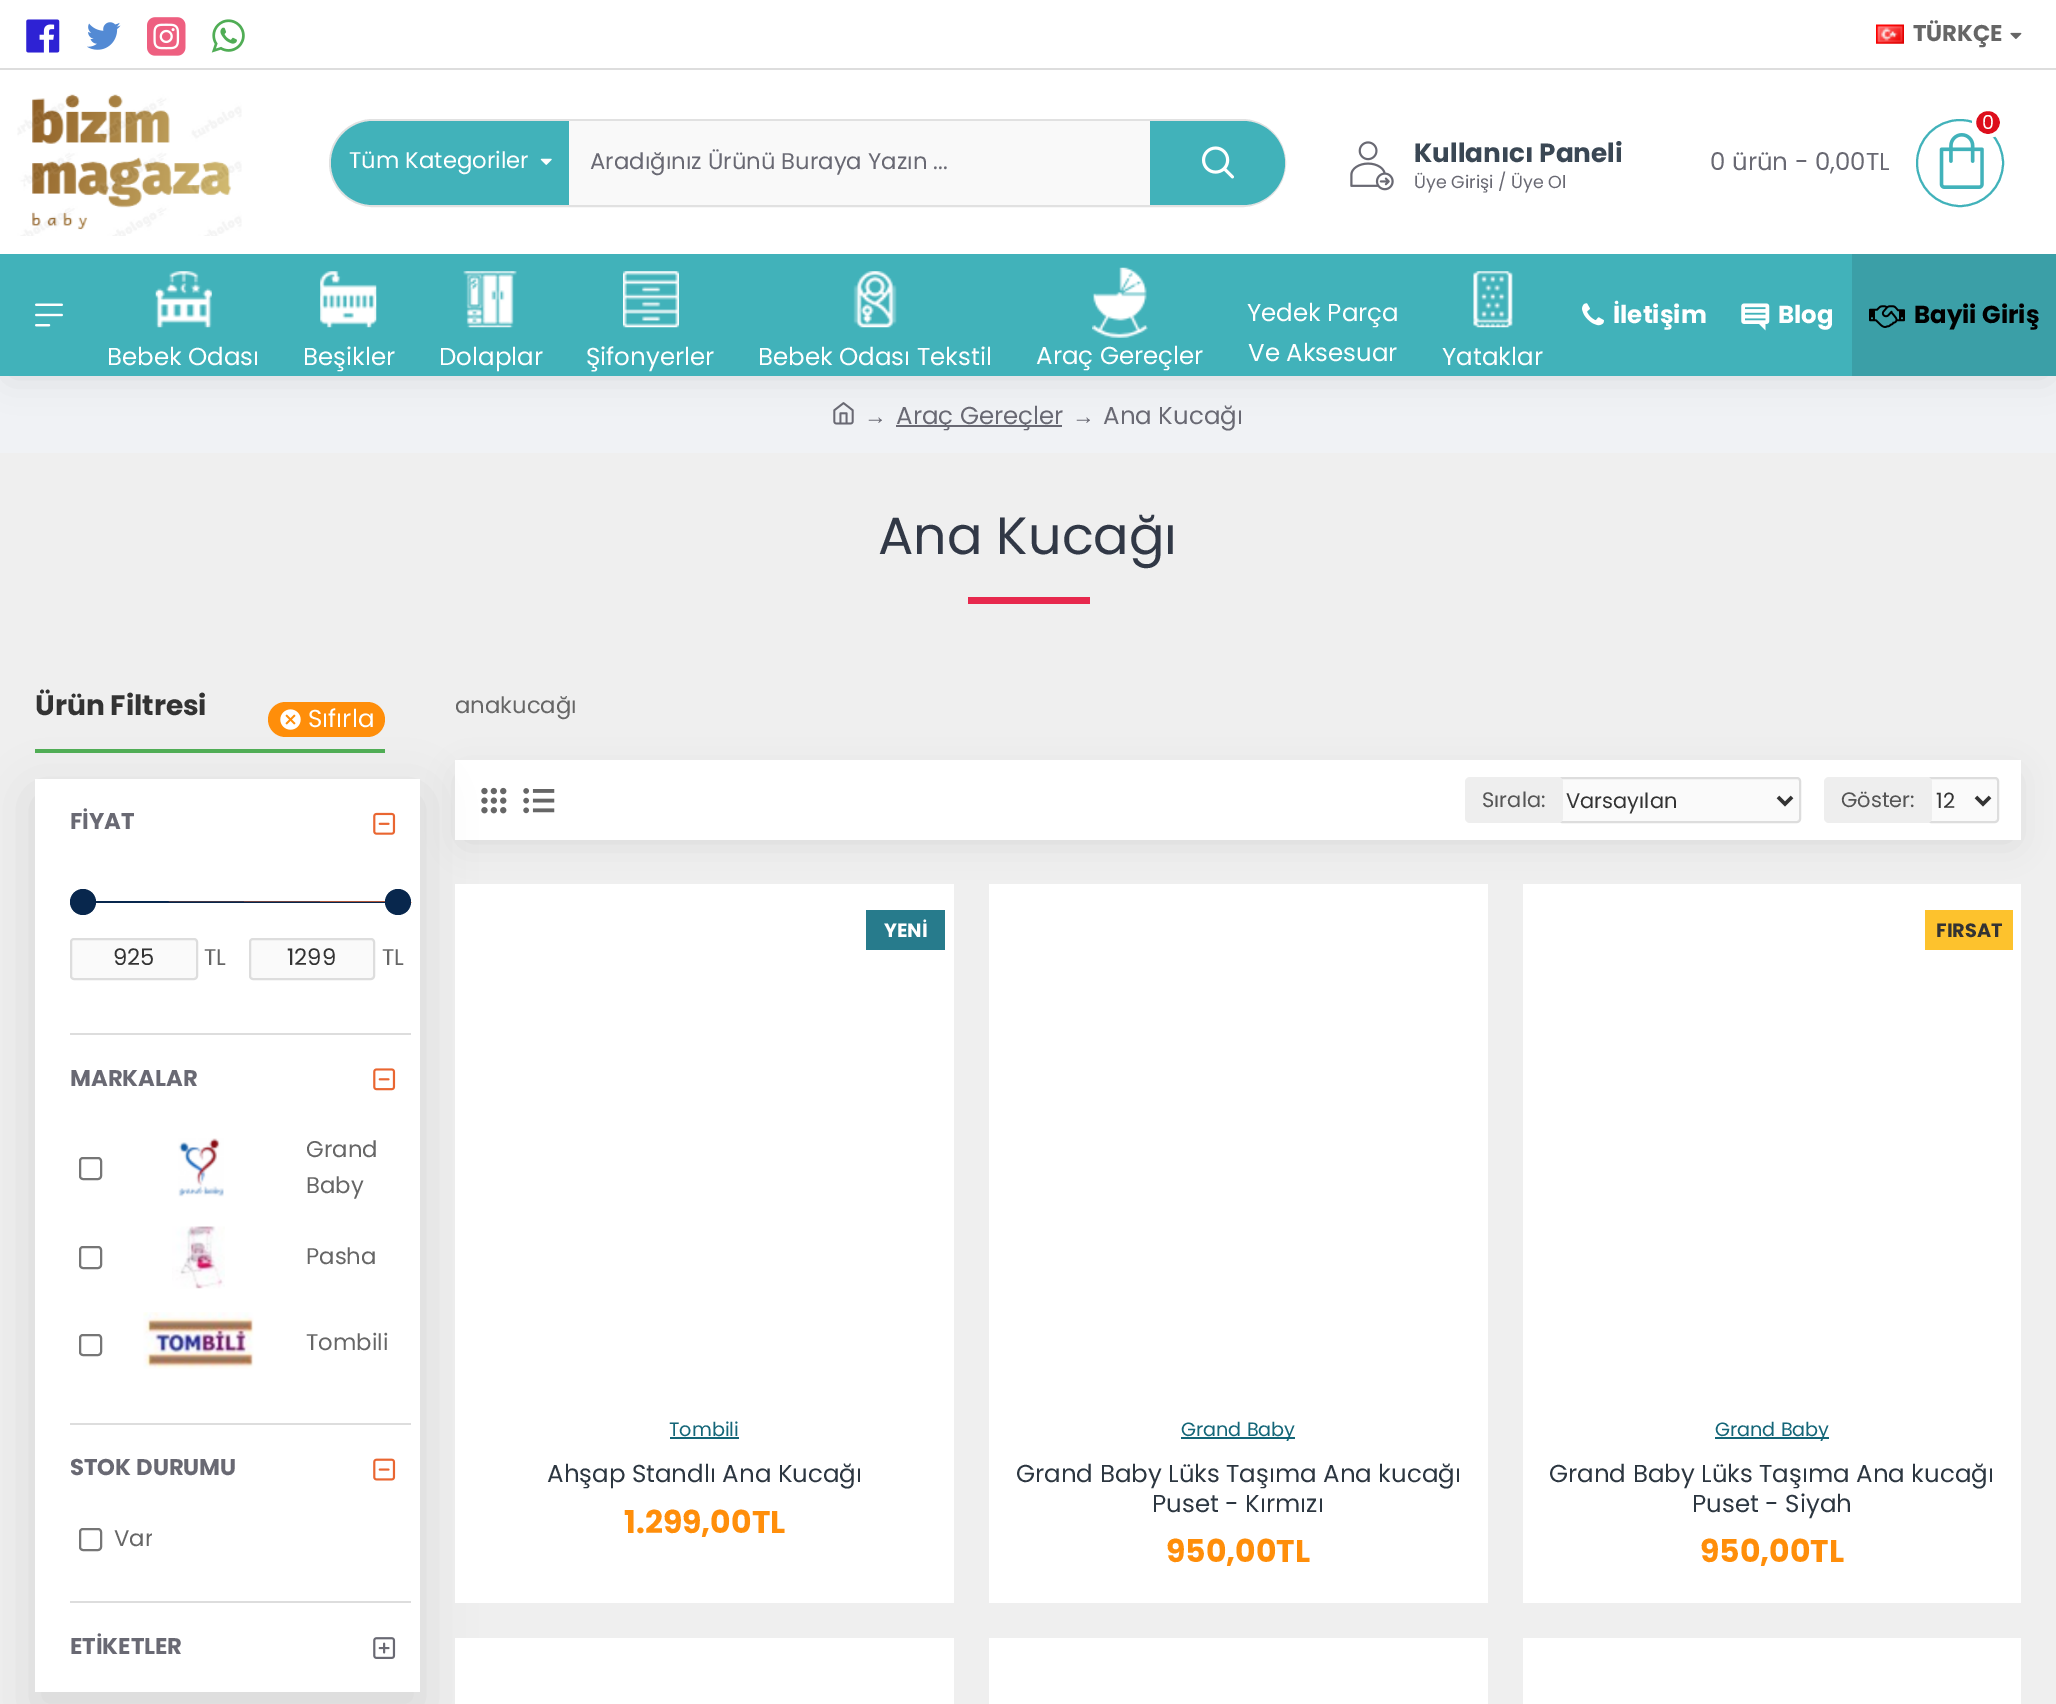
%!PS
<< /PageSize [2056 1704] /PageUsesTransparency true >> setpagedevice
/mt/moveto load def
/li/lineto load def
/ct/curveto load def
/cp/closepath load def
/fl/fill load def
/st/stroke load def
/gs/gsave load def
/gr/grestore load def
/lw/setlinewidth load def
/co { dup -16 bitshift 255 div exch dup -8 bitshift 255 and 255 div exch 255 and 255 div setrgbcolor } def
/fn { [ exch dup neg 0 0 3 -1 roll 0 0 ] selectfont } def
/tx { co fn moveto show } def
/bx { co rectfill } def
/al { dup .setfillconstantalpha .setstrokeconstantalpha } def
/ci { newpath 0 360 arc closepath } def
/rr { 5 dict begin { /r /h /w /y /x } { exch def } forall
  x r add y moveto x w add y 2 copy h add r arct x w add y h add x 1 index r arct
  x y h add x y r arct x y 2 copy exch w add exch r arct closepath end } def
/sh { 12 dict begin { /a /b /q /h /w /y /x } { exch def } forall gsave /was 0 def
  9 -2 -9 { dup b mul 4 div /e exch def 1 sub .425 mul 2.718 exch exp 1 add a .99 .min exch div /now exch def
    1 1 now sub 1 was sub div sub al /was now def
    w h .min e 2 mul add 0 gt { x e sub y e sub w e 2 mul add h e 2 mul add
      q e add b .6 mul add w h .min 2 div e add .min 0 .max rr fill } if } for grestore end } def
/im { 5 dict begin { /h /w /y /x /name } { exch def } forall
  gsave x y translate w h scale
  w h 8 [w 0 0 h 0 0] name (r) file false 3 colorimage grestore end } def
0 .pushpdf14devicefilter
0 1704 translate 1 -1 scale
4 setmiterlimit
0 0 2056 1704 16#EFEFEF bx
0 376 2056 77 16#F0F2F5 bx
(media/23.raw) 833 402 21 23 im
896 425 166 2 16#696973 bx
16#000000 co
9 18 2039 358 0 17.5 .1 sh
0 0 2056 254 16#FFFFFF bx
(media/1.raw) 26 19 34 34 im
(media/2.raw) 87 22 34 28 im
(media/3.raw) 147 17 39 39 im
(media/4.raw) 211 19 34 34 im
(media/5.raw) 1876 24 28 20 im
(media/6.raw) 2010 32 12 7 im
(media/7.raw) 17 94 225 142 im
16#E1E1E1 co
2 lw
330 120 955 86 43 rr st
16#41B2BA co
373 121 mt 569 121 li 569 205 li 373 205 li 350 205 331 186 331 163 ct 331 140 350 121 373 121 ct cp fl
(media/8.raw) 540 158 12 7 im
569 121 581 84 16#F9F9F9 bx
16#41B2BA co
1150 121 mt 1243 121 li 1266 121 1285 140 1285 163 ct 1285 186 1266 205 1243 205 ct 1150 205 li cp fl
(media/9.raw) 1202 146 32 33 im
(media/10.raw) 1350 141 44 50 im
1960 163 43 ci st
(media/11.raw) 1939 133 45 56 im
16#DD0E1C co
1974 109 28 27 13.5 rr gs fl gr
16#FFFFFF co
4 lw
st
0 254 1852 122 16#41B2BA bx
(media/12.raw) 35 303 28 24 im
(media/13.raw) 155 271 57 57 im
(media/14.raw) 320 271 57 57 im
(media/15.raw) 463 271 54 57 im
(media/16.raw) 623 271 56 57 im
(media/17.raw) 853 271 44 57 im
(media/18.raw) 1092 267 56 71 im
(media/19.raw) 1473 271 40 57 im
(media/20.raw) 1582 303 22 23 im
(media/21.raw) 1741 303 29 28 im
1852 254 204 122 16#3B9FA7 bx
(media/22.raw) 1869 305 36 23 im
0 68 2056 2 16#DDDDDD bx
968 597 122 7 16#E7284D bx
16#000000 co
464 777 1549 63 0 17.5 .1 sh
455 760 1566 80 16#FFFFFF bx
16#000000 co
35 796 385 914 0 26 .1 sh
35 749 350 4 16#50AD55 bx
16#FF8E0A co
268 702 117 35 17.5 rr fl
(media/24.raw) 280 709 21 21 im
35 779 385 913 16#FFFFFF bx
(media/25.raw) 373 812 23 23 im
16#E96631 co
79 901 mt 402 901 li 403 901 414 902 411 903 ct 404 903 li 79 903 li 70 903 li 73 902 li cp fl
16#08274D co
93 901 mt 396 902 li 404 902 391 903 390 903 ct 93 903 li 84 903 li 87 902 li cp fl
83 902 13 ci fl
398 902 13 ci fl
16#FAFAFA co
71 939 126 40 3 rr gs fl gr
16#DDDDDD co
2 lw
st
16#FAFAFA co
250 939 124 40 3 rr gs fl gr
16#DDDDDD co
st
70 1033 341 2 16#DDDDDD bx
(media/26.raw) 373 1068 23 23 im
16#767676 co
80 1158 21 21 3 rr st
(media/27.raw) 178 1138 46 59 im
80 1247 21 21 3 rr st
(media/28.raw) 172 1226 53 63 im
80 1335 21 20 3 rr st
(media/29.raw) 143 1312 111 57 im
70 1423 341 2 16#DDDDDD bx
(media/30.raw) 373 1458 23 23 im
16#767676 co
80 1529 21 21 3 rr st
70 1601 341 2 16#DDDDDD bx
(media/31.raw) 373 1637 23 22 im
(media/32.raw) 481 787 26 27 im
(media/33.raw) 523 788 32 26 im
16#FAFAFA co
1559 778 241 44 3 rr gs fl gr
16#DDDDDD co
st
16#EEEEEE co
1465 777 98 46 5 rr fl
16#333333 co
3.5 lw
1778 797 mt 1785 804 li 1792 797 li st
16#FAFAFA co
1928 778 70 44 3 rr gs fl gr
16#DDDDDD co
2 lw
st
16#EEEEEE co
1824 777 108 46 5 rr fl
16#333333 co
3.5 lw
1976 797 mt 1983 804 li 1990 797 li st
455 884 499 719 16#FFFFFF bx
866 910 79 40 16#277B8C bx
670 1437 69 2 16#146678 bx
989 884 499 719 16#FFFFFF bx
1181 1437 114 2 16#146678 bx
1523 884 498 719 16#FFFFFF bx
1925 910 88 40 16#FDC22D bx
1715 1437 114 2 16#146678 bx
455 1638 499 66 16#FFFFFF bx
989 1638 499 66 16#FFFFFF bx
1523 1638 498 66 16#FFFFFF bx
(TÜRKÇE) 1913 41 /Poppins-Bold 22.75 16#666666 tx
(Tüm Kategoriler) 349 168 /Poppins-Regular 22.75 16#FFFFFF tx
(Aradığınız Ürünü Buraya Yazın ...) 590 169 /Poppins-Regular 22.75 16#696973 tx
(Kullanıcı Paneli) 1414 162 /Poppins-Bold 26.25 16#3A4754 tx
(Üye Girişi / Üye Ol) 1414 188 /Poppins-Regular 17.5 16#696973 tx
(0) 1982 129 /Poppins-Regular 19.25 16#FFFFFF tx
(0 ürün - 0,00TL) 1710 170 /Poppins-Regular 24.5 16#696973 tx
(Yedek Parça) 1247 321 /Poppins-Regular 24.5 16#FFFFFF tx
(Ve Aksesuar) 1248 361 /Poppins-Regular 24.5 16#FFFFFF tx
(Bebek Odası) 107 365 /Poppins-Regular 24.5 16#FFFFFF tx
(Beşikler) 303 365 /Poppins-Regular 24.5 16#FFFFFF tx
(Dolaplar) 439 365 /Poppins-Regular 24.5 16#FFFFFF tx
(Şifonyerler) 586 365 /Poppins-Regular 24.5 16#FFFFFF tx
(Bebek Odası Tekstil) 758 365 /Poppins-Regular 24.5 16#FFFFFF tx
(Araç Gereçler) 1036 364 /Poppins-Regular 24.5 16#FFFFFF tx
(Yataklar) 1442 365 /Poppins-Regular 24.5 16#FFFFFF tx
(İletişim) 1613 323 /Poppins-Bold 24.5 16#FFFFFF tx
(Blog) 1778 323 /Poppins-Bold 24.5 16#FFFFFF tx
(Bayii Giriş) 1914 323 /Poppins-Bold 24.5 16#000000 tx
(→) 864 424 /LiberationSerif-Regular 22.75 16#696973 tx
(Araç Gereçler) 896 424 /Poppins-Regular 24.5 16#696973 tx
(→) 1072 424 /LiberationSerif-Regular 22.75 16#696973 tx
(Ana Kucağı) 1103 424 /Poppins-Regular 24.5 16#696973 tx
(Ana Kucağı) 878 554 /Poppins-Regular 52.5 16#313846 tx
(Ürün Filtresi) 35 715 /Poppins-Bold 28 16#333333 tx
(Sıfırla) 308 727 /Poppins-Regular 24.5 16#FFFFFF tx
(FİYAT) 70 829 /Poppins-Bold 22.75 16#696973 tx
(925) 113 965 /Poppins-Regular 22.75 16#333333 tx
(TL) 204 965 /Poppins-Regular 22.75 16#666666 tx
(1299) 287 965 /Poppins-Regular 22.75 16#333333 tx
(TL) 382 965 /Poppins-Regular 22.75 16#666666 tx
(MARKALAR) 70 1086 /Poppins-Bold 22.75 16#696973 tx
(Grand) 306 1157 /Poppins-Regular 22.75 16#666666 tx
(Baby) 306 1193 /Poppins-Regular 22.75 16#666666 tx
(Pasha) 306 1264 /Poppins-Regular 22.75 16#666666 tx
(Tombili) 306 1350 /Poppins-Regular 22.75 16#666666 tx
(STOK DURUMU) 70 1475 /Poppins-Bold 22.75 16#696973 tx
gs
114 1523 38 35 rectclip
(Var) 114 1546 /Poppins-Regular 22.75 16#666666 tx
gr
(ETİKETLER) 70 1654 /Poppins-Bold 22.75 16#696973 tx
(anakucağı) 455 713 /Poppins-Regular 22.75 16#666666 tx
(Sırala:) 1482 807 /Poppins-Regular 21 16#555555 tx
(Varsayılan) 1566 808 /Poppins-Regular 21 16#333333 tx
(Göster:) 1841 807 /Poppins-Regular 21 16#555555 tx
(12) 1936 808 /Poppins-Regular 21 16#333333 tx
(YENİ) 884 937 /Poppins-Bold 19.25 16#FFFFFF tx
(Tombili) 669 1436 /Poppins-Regular 19.25 16#146678 tx
(Ahşap Standlı Ana Kucağı) 547 1482 /Poppins-Regular 24.5 16#2C3640 tx
(1.299,00TL) 624 1533 /Poppins-Bold 31.5 16#FF8E0A tx
(Grand Baby) 1181 1436 /Poppins-Regular 19.25 16#146678 tx
(Grand Baby Lüks Taşıma Ana kucağı) 1016 1482 /Poppins-Regular 24.5 16#2C3640 tx
(Puset - Kırmızı) 1152 1512 /Poppins-Regular 24.5 16#2C3640 tx
(950,00TL) 1166 1562 /Poppins-Bold 31.5 16#FF8E0A tx
(FIRSAT) 1936 937 /Poppins-Bold 19.25 16#333333 tx
(Grand Baby) 1715 1436 /Poppins-Regular 19.25 16#146678 tx
(Grand Baby Lüks Taşıma Ana kucağı) 1549 1482 /Poppins-Regular 24.5 16#2C3640 tx
(Puset - Siyah) 1692 1512 /Poppins-Regular 24.5 16#2C3640 tx
(950,00TL) 1700 1562 /Poppins-Bold 31.5 16#FF8E0A tx
.poppdf14devicefilter showpage
